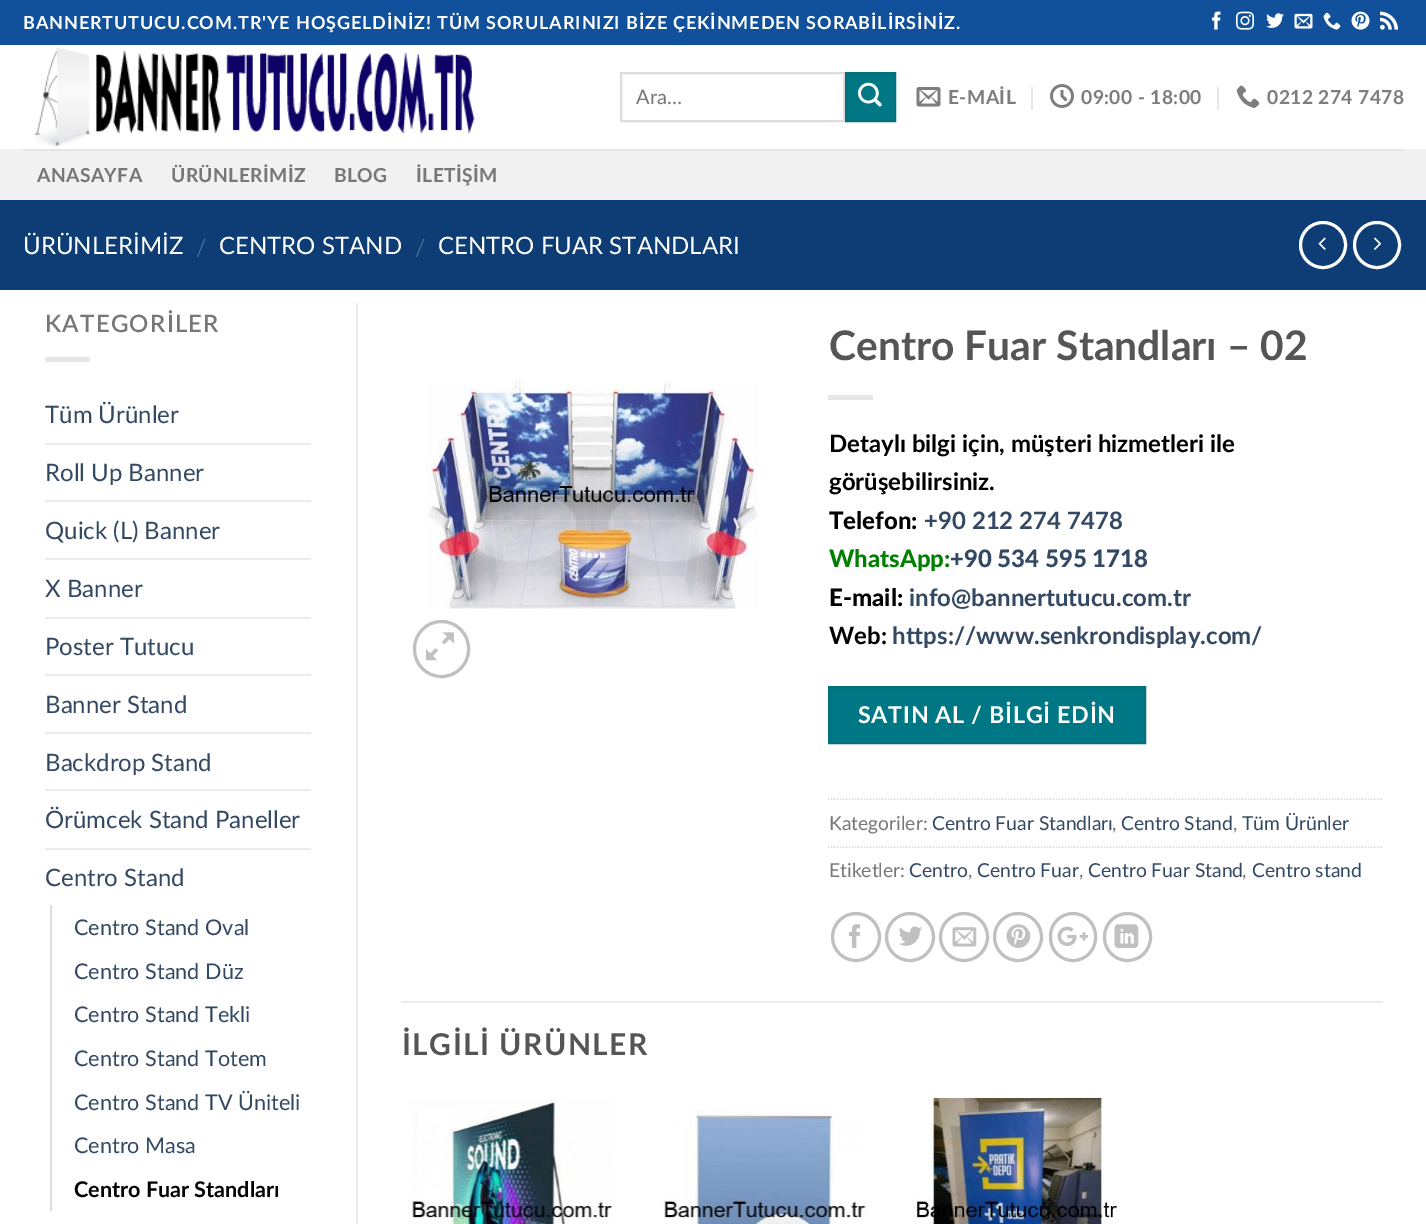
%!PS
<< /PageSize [1426 1224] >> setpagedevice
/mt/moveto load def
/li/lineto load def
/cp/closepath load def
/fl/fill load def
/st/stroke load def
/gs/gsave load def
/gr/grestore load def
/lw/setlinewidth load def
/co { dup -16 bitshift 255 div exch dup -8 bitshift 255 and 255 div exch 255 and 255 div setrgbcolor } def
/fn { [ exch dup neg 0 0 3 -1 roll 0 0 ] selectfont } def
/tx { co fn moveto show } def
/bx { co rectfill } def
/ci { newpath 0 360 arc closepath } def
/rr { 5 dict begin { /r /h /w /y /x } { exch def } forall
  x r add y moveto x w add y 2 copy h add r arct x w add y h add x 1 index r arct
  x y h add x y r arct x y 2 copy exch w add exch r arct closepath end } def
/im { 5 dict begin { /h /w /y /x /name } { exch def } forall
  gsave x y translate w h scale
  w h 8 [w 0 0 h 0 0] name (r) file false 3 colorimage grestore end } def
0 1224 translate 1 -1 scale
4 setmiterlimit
0 0 1426 1224 16#FFFFFF bx
0 0 1426 45 16#11519B bx
(media/1.raw) 1212 11 9 19 im
(media/2.raw) 1236 11 18 19 im
(media/3.raw) 1266 13 18 15 im
(media/4.raw) 1294 13 19 16 im
(media/5.raw) 1323 12 18 18 im
(media/6.raw) 1351 11 19 19 im
(media/7.raw) 1380 11 18 19 im
(media/8.raw) 33 47 442 100 im
16#DDDDDD co
2 lw
621 73 223 48 rectstroke
16#007784 co
846 73 mt 895 73 li 895 121 li 846 121 li cp gs fl gr
16#00717D co
st
(media/9.raw) 858 82 24 25 im
(media/10.raw) 916 87 25 20 im
1031 87 2 23 16#E6E6E6 bx
(media/11.raw) 1050 84 24 24 im
1217 87 2 23 16#E6E6E6 bx
(media/12.raw) 1236 85 24 23 im
0 149 1426 51 16#F1F1F1 bx
23 149 1381 2 16#E5E5E5 bx
0 200 1426 90 16#0D3D74 bx
16#FFFFFF co
3 lw
1323 245 22.5 ci st
(media/13.raw) 1318 237 8 13 im
1377 245 22.5 ci st
(media/14.raw) 1374 237 8 13 im
356 303 2 921 16#ECECEC bx
45 357 45 5 16#E6E6E6 bx
45 443 266 2 16#ECECEC bx
45 500 266 2 16#ECECEC bx
45 558 266 2 16#ECECEC bx
45 617 266 2 16#ECECEC bx
45 674 266 2 16#ECECEC bx
45 732 266 2 16#ECECEC bx
45 789 266 2 16#ECECEC bx
45 848 266 2 16#ECECEC bx
50 905 2 306 16#DDDDDD bx
(media/15.raw) 426 380 332 229 im
16#C0C0C0 co
414.5 621.5 54 55 27 rr st
(media/16.raw) 426 632 28 29 im
828 395 45 5 16#E6E6E6 bx
16#007784 co
829 687 mt 1145 687 li 1145 743 li 829 743 li cp gs fl gr
16#00717D co
2 lw
st
16#DDDDDD co
1.5 lw
[1.5 1.5] 0 setdash
828 799 mt 1381.5 799 li st
828 847 mt 1381.5 847 li st
16#C0C0C0 co
3 lw
[] 0 setdash
856 937 23.5 ci st
(media/17.raw) 849 924 11 24 im
910 937 23.5 ci st
(media/18.raw) 899 926 23 20 im
964 937 23.5 ci st
(media/19.raw) 952 927 25 20 im
1018 937 23.5 ci st
(media/20.raw) 1006 924 25 24 im
1050.5 913.5 45 47 22.5 rr st
(media/21.raw) 1057 926 31 20 im
1104.5 913.5 46 47 23 rr st
(media/22.raw) 1114 924 25 24 im
402 1001 980 2 16#ECECEC bx
(media/23.raw) 408 1098 207 126 im
(media/24.raw) 660 1110 207 114 im
(media/25.raw) 912 1098 208 126 im
/Lato-Bold 18 fn
16#FFFFFF co
23 29 mt .9 0 (BANNERTUTUCU.COM.TR'YE HOŞGELDİNİZ! TÜM SORULARINIZI BİZE ÇEKİNMEDEN SORABİLİRSİNİZ.) ashow
(Ara…) 636 104 /Lato-Regular 20 16#777777 tx
/Lato-Bold 19.25 fn
16#7D7D7D co
948 104 mt .4 0 (E-MAİL) ashow
1081 104 mt .4 0 (09:00 - 18:00) ashow
1267 104 mt .4 0 (0212 274 7478) ashow
16#777777 co
37 182 mt .4 0 (ANASAYFA) ashow
171 182 mt .4 0 (ÜRÜNLERİMİZ) ashow
334 182 mt .4 0 (BLOG) ashow
416 182 mt .4 0 (İLETİŞİM) ashow
(ÜRÜNLERİMİZ) 23 254 /Lato-Regular 24 16#FFFFFF tx
(/) 196 256 /Lato-Light 24 16#6281A5 tx
(CENTRO STAND) 219 254 /Lato-Regular 24 16#FFFFFF tx
(/) 415 256 /Lato-Light 24 16#6281A5 tx
(CENTRO FUAR STANDLARI) 438 254 /Lato-Regular 24 16#FFFFFF tx
/Lato-SemiBold 24 fn
16#777777 co
45 332 mt 1.25 0 (KATEGORİLER) ashow
(Tüm Ürünler) 45 423 /Lato-Regular 24 16#334862 tx
(Roll Up Banner) 45 481 /Lato-Regular 24 16#334862 tx
(Quick \(L\) Banner) 45 539 /Lato-Regular 24 16#334862 tx
(X Banner) 45 597 /Lato-Regular 24 16#334862 tx
(Poster Tutucu) 45 655 /Lato-Regular 24 16#334862 tx
(Banner Stand) 45 713 /Lato-Regular 24 16#334862 tx
(Backdrop Stand) 45 771 /Lato-Regular 24 16#334862 tx
(Örümcek Stand Paneller) 45 828 /Lato-Regular 24 16#334862 tx
(Centro Stand) 45 886 /Lato-Regular 24 16#334862 tx
(Centro Stand Oval) 74 935 /Lato-Regular 21.6 16#334862 tx
(Centro Stand Düz) 74 979 /Lato-Regular 21.6 16#334862 tx
(Centro Stand Tekli) 74 1022 /Lato-Regular 21.6 16#334862 tx
(Centro Stand Totem) 74 1066 /Lato-Regular 21.6 16#334862 tx
(Centro Stand TV Üniteli) 74 1110 /Lato-Regular 21.6 16#334862 tx
(Centro Masa) 74 1153 /Lato-Regular 21.6 16#334862 tx
(Centro Fuar Standları) 74 1197 /Lato-Bold 21.6 16#000000 tx
(Centro Fuar Standları – 02) 829 360 /Lato-Bold 40.75 16#555555 tx
(Detaylı bilgi için, müşteri hizmetleri ile) 829 452 /Lato-Bold 24 16#000000 tx
(görüşebilirsiniz.) 829 490 /Lato-Bold 24 16#000000 tx
(Telefon:) 829 529 /Lato-Black 24 16#000000 tx
(+90 212 274 7478) 924 529 /Lato-Bold 24 16#334862 tx
(WhatsApp:) 829 567 /Lato-Black 24 16#007F00 tx
(+90 534 595 1718) 950 567 /Lato-Black 24 16#334862 tx
(E-mail:) 829 606 /Lato-Black 24 16#000000 tx
(info@bannertutucu.com.tr) 909 606 /Lato-Bold 24 16#334862 tx
(Web:) 829 644 /Lato-Bold 24 16#000000 tx
(https://www.senkrondisplay.com/) 892 644 /Lato-Bold 24 16#334862 tx
/Lato-Bold 23.25 fn
16#FFFFFF co
858 723 mt .7 0 (SATIN AL / BİLGİ EDİN) ashow
(Kategoriler:) 829 830 /Lato-Regular 19.25 16#777777 tx
(Centro Fuar Standları) 932 830 /Lato-Regular 19.25 16#334862 tx
(,) 1112 830 /Lato-Regular 19.25 16#777777 tx
(Centro Stand) 1121 830 /Lato-Regular 19.25 16#334862 tx
(,) 1233 830 /Lato-Regular 19.25 16#777777 tx
(Tüm Ürünler) 1242 830 /Lato-Regular 19.25 16#334862 tx
(Etiketler:) 829 877 /Lato-Regular 19.25 16#777777 tx
(Centro) 909 877 /Lato-Regular 19.25 16#334862 tx
(,) 968 877 /Lato-Regular 19.25 16#777777 tx
(Centro Fuar) 977 877 /Lato-Regular 19.25 16#334862 tx
(,) 1079 877 /Lato-Regular 19.25 16#777777 tx
(Centro Fuar Stand) 1088 877 /Lato-Regular 19.25 16#334862 tx
(,) 1242 877 /Lato-Regular 19.25 16#777777 tx
(Centro stand) 1252 877 /Lato-Regular 19.25 16#334862 tx
/Lato-Bold 30 fn
16#555555 co
402 1055 mt 1.5 0 (İLGİLİ ÜRÜNLER) ashow
showpage
